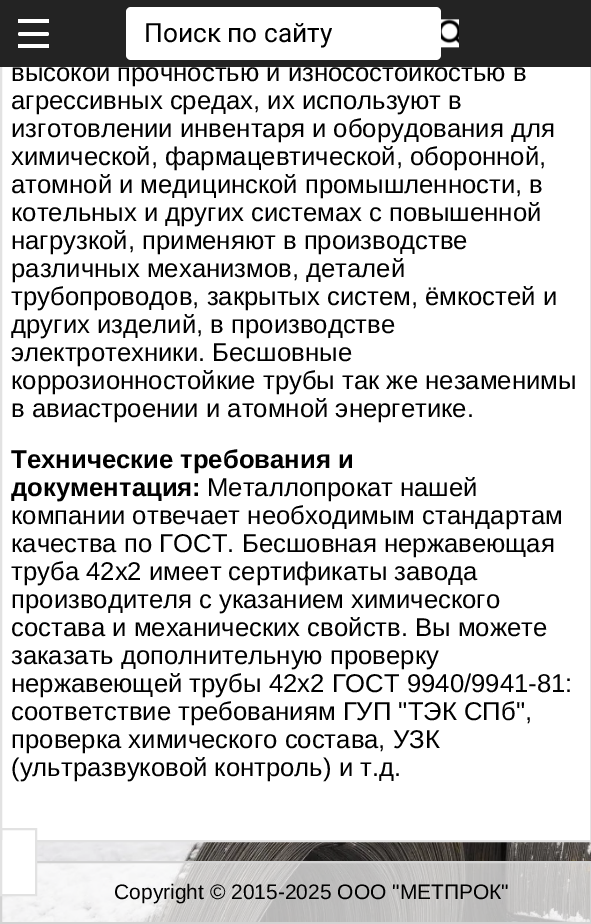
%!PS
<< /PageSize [591 924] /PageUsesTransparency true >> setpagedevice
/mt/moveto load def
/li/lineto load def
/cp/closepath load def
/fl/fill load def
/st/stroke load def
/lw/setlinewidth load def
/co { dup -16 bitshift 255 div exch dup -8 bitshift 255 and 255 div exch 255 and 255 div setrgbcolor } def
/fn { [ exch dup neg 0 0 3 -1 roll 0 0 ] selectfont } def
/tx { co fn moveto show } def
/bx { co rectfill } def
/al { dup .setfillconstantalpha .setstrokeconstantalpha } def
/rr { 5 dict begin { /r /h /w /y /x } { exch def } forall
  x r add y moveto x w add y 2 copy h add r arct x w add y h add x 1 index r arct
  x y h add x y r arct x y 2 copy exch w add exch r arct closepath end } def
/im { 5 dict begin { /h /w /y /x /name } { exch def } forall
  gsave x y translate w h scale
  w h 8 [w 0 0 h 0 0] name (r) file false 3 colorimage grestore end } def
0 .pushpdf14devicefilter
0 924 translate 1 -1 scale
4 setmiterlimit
0 0 591 924 16#FFFFFF bx
(media/1.raw) 2 842 589 80 im
16#E2E2E2 co
2 lw
1 -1 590 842 rectstroke
0.7 al
16#FFFFFF co
1 862 mt 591 862 li 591 923 li 1 923 li cp fl
1 al
16#D3D3D3 co
1 862 mt 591 862 li 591 923 li 1 923 li cp st
2 840 33 54 16#FFFFFF bx
16#E2E2E2 co
1 829 35 66 rectstroke
(высокой прочностью и износостойкостью в) 11 81 /LiberationSans-Regular 25.7 16#000000 tx
0 0 591 67 16#232323 bx
16#FFFFFF co
18 32 31 4 2 rr fl
18 44 31 4 16#FFFFFF bx
18 19 31 4 16#FFFFFF bx
(media/2.raw) 441 19 18 29 im
126 7 315 53 5 rr fl
(Поиск по сайту) 144 42 /Roboto-Regular 26.25 16#000000 tx
(агрессивных средах, их используют в) 11 109 /LiberationSans-Regular 25.7 16#000000 tx
(изготовлении инвентаря и оборудования для) 11 137 /LiberationSans-Regular 25.7 16#000000 tx
(химической, фармацевтической, оборонной,) 11 165 /LiberationSans-Regular 25.7 16#000000 tx
(атомной и медицинской промышленности, в) 11 193 /LiberationSans-Regular 25.7 16#000000 tx
(котельных и других системах с повышенной) 11 221 /LiberationSans-Regular 25.7 16#000000 tx
(нагрузкой, применяют в производстве) 11 249 /LiberationSans-Regular 25.7 16#000000 tx
(различных механизмов, деталей) 11 277 /LiberationSans-Regular 25.7 16#000000 tx
(трубопроводов, закрытых систем, ёмкостей и) 11 305 /LiberationSans-Regular 25.7 16#000000 tx
(других изделий, в производстве) 11 333 /LiberationSans-Regular 25.7 16#000000 tx
(электротехники. Бесшовные) 11 361 /LiberationSans-Regular 25.7 16#000000 tx
(коррозионностойкие трубы так же незаменимы) 11 389 /LiberationSans-Regular 25.7 16#000000 tx
(в авиастроении и атомной энергетике.) 11 417 /LiberationSans-Regular 25.7 16#000000 tx
(Технические требования и) 11 468 /LiberationSans-Bold 25.7 16#000000 tx
(документация:) 11 496 /LiberationSans-Bold 25.7 16#000000 tx
(Металлопрокат нашей) 207 496 /LiberationSans-Regular 25.7 16#000000 tx
(компании отвечает необходимым стандартам) 11 524 /LiberationSans-Regular 25.7 16#000000 tx
(качества по ГОСТ. Бесшовная нержавеющая) 11 552 /LiberationSans-Regular 25.7 16#000000 tx
(труба 42х2 имеет сертификаты завода) 11 580 /LiberationSans-Regular 25.7 16#000000 tx
(производителя с указанием химического) 11 608 /LiberationSans-Regular 25.7 16#000000 tx
(состава и механических свойств. Вы можете) 11 636 /LiberationSans-Regular 25.7 16#000000 tx
(заказать дополнительную проверку) 11 664 /LiberationSans-Regular 25.7 16#000000 tx
(нержавеющей трубы 42х2 ГОСТ 9940/9941-81:) 11 692 /LiberationSans-Regular 25.7 16#000000 tx
(соответствие требованиям ГУП "ТЭК СПб",) 11 720 /LiberationSans-Regular 25.7 16#000000 tx
(проверка химического состава, УЗК) 11 748 /LiberationSans-Regular 25.7 16#000000 tx
(\(ультразвуковой контроль\) и т.д.) 11 776 /LiberationSans-Regular 25.7 16#000000 tx
(Copyright © 2015-2025 ООО "МЕТПРОК") 114 899 /LiberationSans-Regular 21 16#000000 tx
.poppdf14devicefilter showpage
